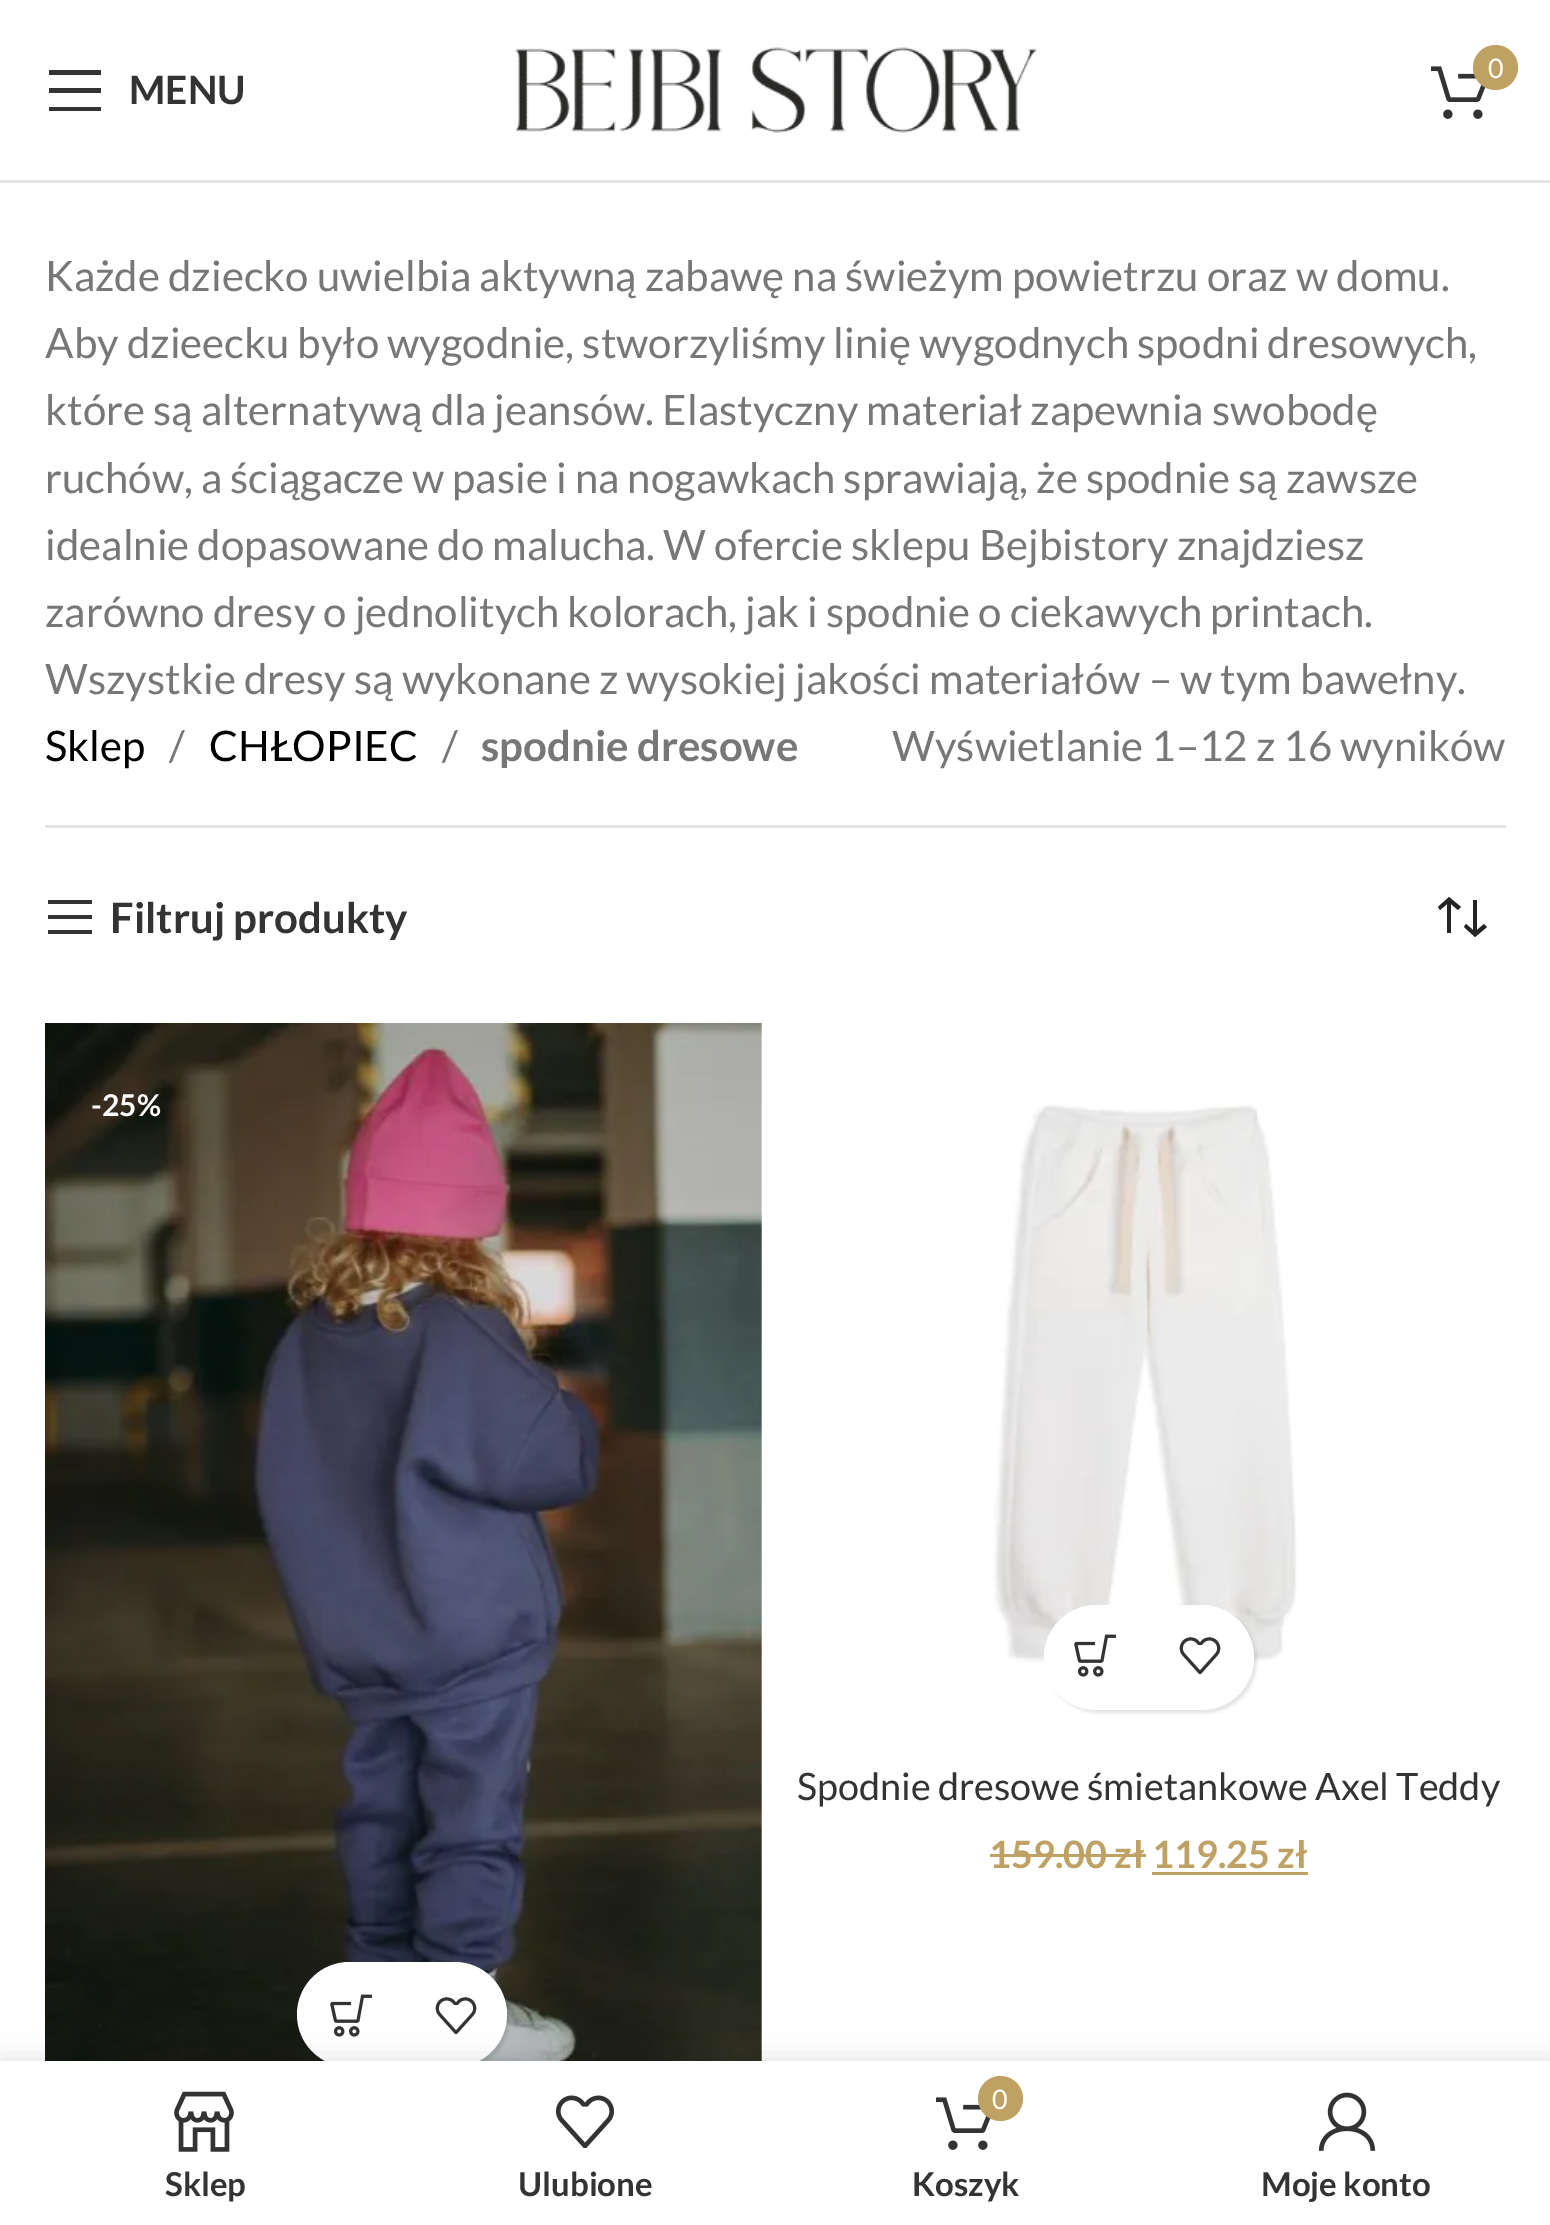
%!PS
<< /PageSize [1550 2225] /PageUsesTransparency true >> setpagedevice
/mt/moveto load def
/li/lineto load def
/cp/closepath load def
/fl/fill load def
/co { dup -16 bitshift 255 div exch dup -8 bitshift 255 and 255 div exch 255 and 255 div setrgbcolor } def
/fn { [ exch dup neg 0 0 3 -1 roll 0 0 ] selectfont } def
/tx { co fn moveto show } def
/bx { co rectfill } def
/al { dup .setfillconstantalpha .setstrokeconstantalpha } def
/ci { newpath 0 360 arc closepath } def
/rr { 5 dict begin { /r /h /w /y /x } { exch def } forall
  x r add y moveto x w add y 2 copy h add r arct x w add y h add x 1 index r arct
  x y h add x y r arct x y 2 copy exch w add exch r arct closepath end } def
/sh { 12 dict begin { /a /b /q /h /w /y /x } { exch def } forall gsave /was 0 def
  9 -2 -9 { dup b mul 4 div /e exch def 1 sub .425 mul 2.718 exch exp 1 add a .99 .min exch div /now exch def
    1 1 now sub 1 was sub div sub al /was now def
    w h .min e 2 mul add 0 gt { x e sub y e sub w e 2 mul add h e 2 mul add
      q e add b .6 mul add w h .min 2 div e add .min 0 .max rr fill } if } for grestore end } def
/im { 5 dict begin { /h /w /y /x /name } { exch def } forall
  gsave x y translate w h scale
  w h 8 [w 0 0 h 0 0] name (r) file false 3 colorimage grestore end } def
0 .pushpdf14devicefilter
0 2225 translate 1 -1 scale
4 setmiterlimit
0 0 1550 2225 16#FFFFFF bx
0 180 1550 3 16#E6E6E6 bx
(media/1.raw) 515 47 523 86 im
(media/2.raw) 1431 66 55 53 im
16#BEA163 co
1495.5 67.5 22.5 ci fl
16#333333 co
49 75 mt 101 75 li 101 70 li 49 70 li cp 49 93 mt 101 93 li 101 88 li 49 88 li cp 49 111 mt 101 111 li 101 107 li 49 107 li cp fl
45 825 1461 3 16#E4E4E4 bx
16#333333 co
48 904 mt 92 904 li 92 900 li 48 900 li cp 48 919 mt 92 919 li 92 915 li 48 915 li cp 48 934 mt 92 934 li 92 930 li 48 930 li cp fl
16#242424 co
1449 897 mt 1438 907 li 1440 910 li 1447 904 li 1447 933 li 1451 933 li 1451 904 li 1458 910 li 1461 907 li cp 1475 937 mt 1487 927 li 1484 924 li 1477 930 li 1477 900 li 1473 900 li 1473 930 li 1466 924 li 1464 927 li cp fl
(media/3.raw) 45 1023 717 1038 im
16#000000 co
300 1965 210 105 52.5 1.5 .1 sh
16#FFFFFF co
297 1962 210 105 52.5 rr fl
(media/4.raw) 330 1994 42 43 im
(media/5.raw) 435 1997 42 37 im
(media/6.raw) 993 1104 304 559 im
16#000000 co
1047 1608 210 105 52.5 1.5 .1 sh
16#FFFFFF co
1044 1605 210 105 52.5 rr fl
(media/4.raw) 1074 1634 42 43 im
(media/5.raw) 1179 1637 42 37 im
990 1854 156 3 16#BEA163 bx
1152 1872 156 3 16#BEA163 bx
16#000000 co
0 2061 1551 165 0 13.5 .12 sh
0 2061 1550 164 16#FFFFFF bx
(media/7.raw) 174 2091 60 61 im
(media/8.raw) 555 2095 60 53 im
(media/2.raw) 936 2097 55 53 im
16#BEA163 co
1000.5 2098.5 22.5 ci fl
(media/9.raw) 1318 2092 58 59 im
(0) 1488 78 /Lato-Regular 27 16#FFFFFF tx
(MENU) 129 104 /Lato-Bold 39 16#333333 tx
(Każde dziecko uwielbia aktywną zabawę na świeżym powietrzu oraz w domu.) 45 291 /Lato-Regular 42 16#777777 tx
(Aby dzieecku było wygodnie, stworzyliśmy linię wygodnych spodni dresowych,) 45 358 /Lato-Regular 42 16#777777 tx
(które są alternatywą dla jeansów. Elastyczny materiał zapewnia swobodę) 45 425 /Lato-Regular 42 16#777777 tx
(ruchów, a ściągacze w pasie i na nogawkach sprawiają, że spodnie są zawsze) 45 493 /Lato-Regular 42 16#777777 tx
(idealnie dopasowane do malucha. W ofercie sklepu Bejbistory znajdziesz) 45 560 /Lato-Regular 42 16#777777 tx
(zarówno dresy o jednolitych kolorach, jak i spodnie o ciekawych printach.) 45 627 /Lato-Regular 42 16#777777 tx
(Wszystkie dresy są wykonane z wysokiej jakości materiałów – w tym bawełny.) 45 694 /Lato-Regular 42 16#777777 tx
(Sklep) 45 761 /Lato-Regular 42 16#000000 tx
(/) 169 761 /Lato-Regular 42 16#777777 tx
(CHŁOPIEC) 209 761 /Lato-Regular 42 16#000000 tx
(/) 442 761 /Lato-Regular 42 16#777777 tx
(spodnie dresowe) 481 761 /Lato-Bold 42 16#777777 tx
(Wyświetlanie 1–12 z 16 wyników) 892 761 /Lato-Regular 42 16#777777 tx
(Filtruj produkty) 110 933 /Lato-Bold 42 16#333333 tx
(-25%) 91 1116 /Lato-Bold 30 16#FFFFFF tx
(Spodnie dresowe śmietankowe Axel Teddy) 797 1800 /Lato-Regular 37.75 16#333333 tx
(159.00 zł 119.25 zł) 989 1868 /Lato-Bold 37.75 16#BEA163 tx
(Sklep) 165 2196 /Lato-Bold 33 16#333333 tx
(Ulubione) 518 2196 /Lato-Bold 33 16#333333 tx
(0) 992 2109 /Lato-Regular 27 16#FFFFFF tx
(Koszyk) 912 2196 /Lato-Bold 33 16#333333 tx
(Moje konto) 1261 2196 /Lato-Bold 33 16#333333 tx
.poppdf14devicefilter showpage
